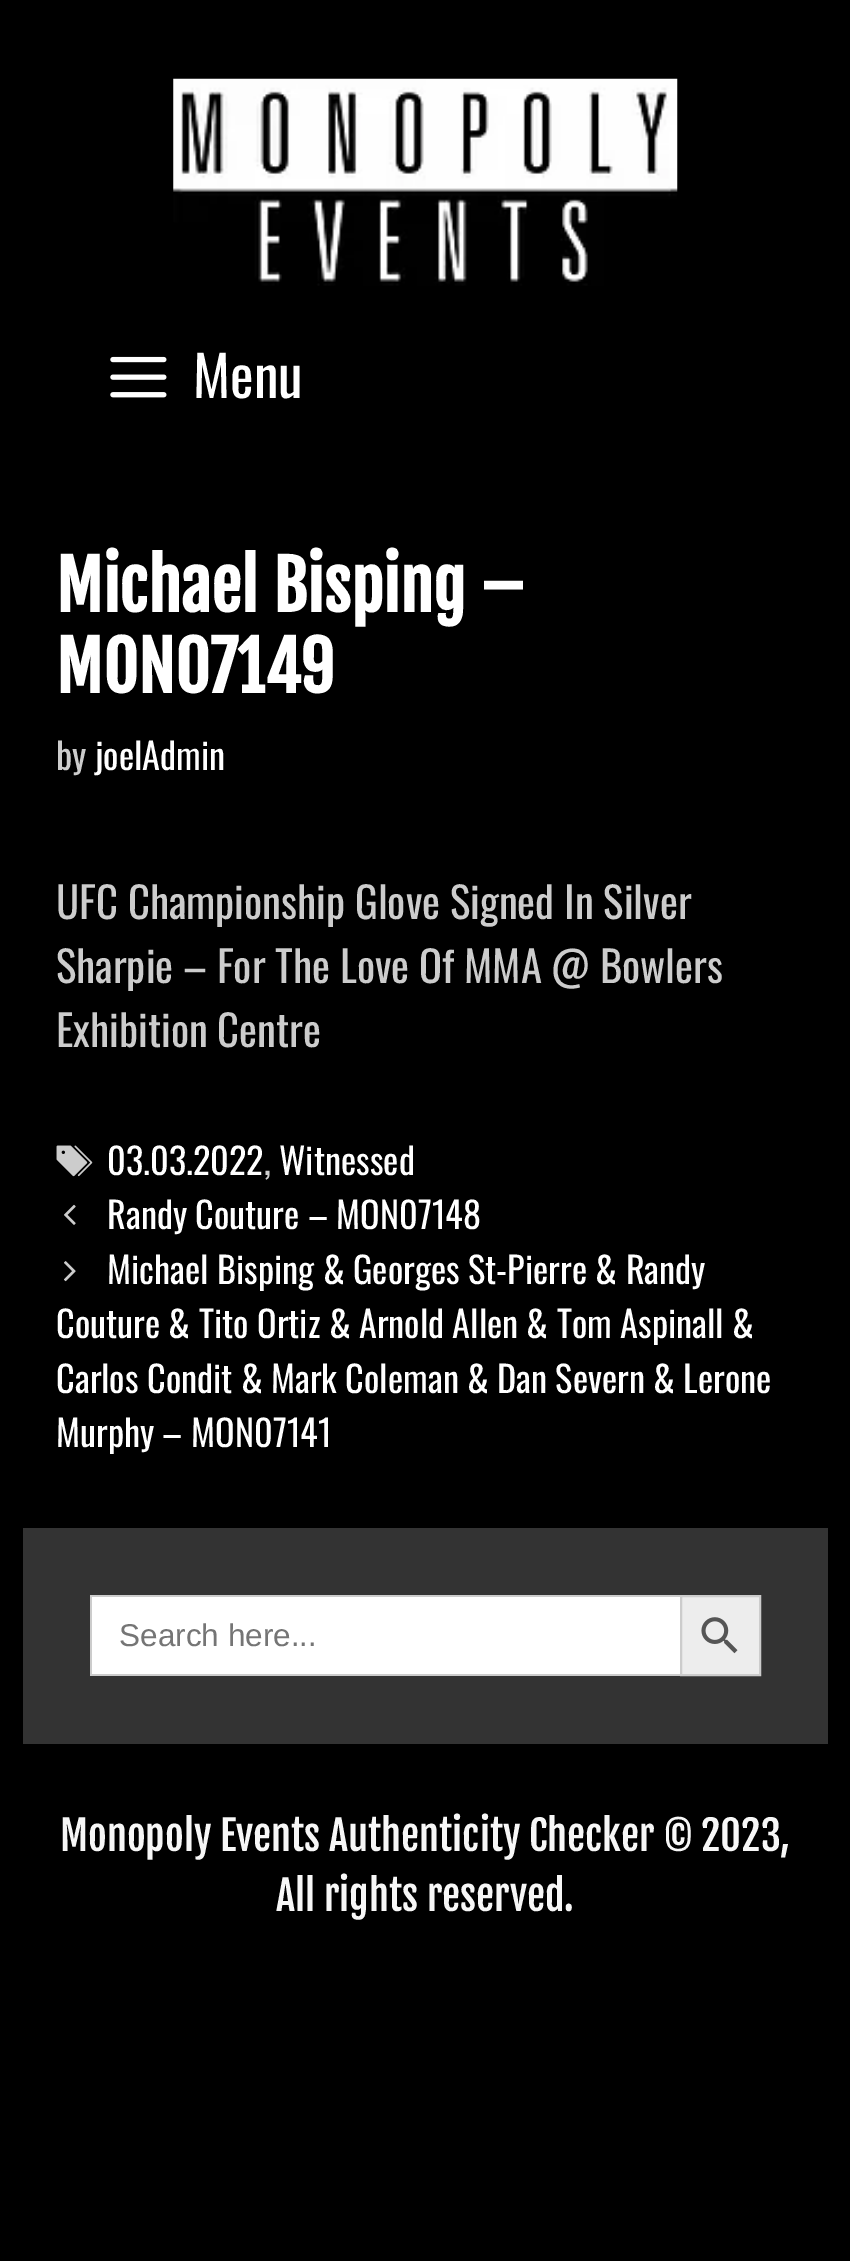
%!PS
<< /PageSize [850 2261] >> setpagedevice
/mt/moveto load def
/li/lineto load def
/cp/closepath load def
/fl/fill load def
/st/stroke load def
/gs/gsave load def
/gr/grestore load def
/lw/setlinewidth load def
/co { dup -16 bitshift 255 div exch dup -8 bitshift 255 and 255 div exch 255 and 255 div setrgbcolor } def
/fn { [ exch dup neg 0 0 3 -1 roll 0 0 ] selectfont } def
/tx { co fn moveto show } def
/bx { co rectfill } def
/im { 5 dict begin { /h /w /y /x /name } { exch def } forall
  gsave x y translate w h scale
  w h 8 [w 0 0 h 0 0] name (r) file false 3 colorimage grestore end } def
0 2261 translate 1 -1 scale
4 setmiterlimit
0 0 850 2261 16#000000 bx
(media/1.raw) 173 78 505 208 im
(media/2.raw) 110 356 57 42 im
(media/3.raw) 56 1145 37 32 im
(media/4.raw) 64 1204 12 21 im
(media/5.raw) 64 1261 12 21 im
23 1528 805 216 16#333333 bx
92 1597 588 77 16#FFFFFF bx
90 1595 590 2 16#CCCCCC bx
90 1674 590 2 16#CCCCCC bx
90 1595 2 81 16#CCCCCC bx
16#EDEDED co
681 1596 mt 760 1596 li 760 1675 li 681 1675 li cp gs fl gr
16#CCCCCC co
2 lw
st
(media/6.raw) 701 1617 37 37 im
(Menu) 193 398 /Oswald-Regular 56 16#FFFFFF tx
(Michael Bisping –) 56 612 /FjallaOne-Bold 67.5 16#FFFFFF tx
(MON07149) 56 693 /FjallaOne-Bold 67.5 16#FFFFFF tx
(by) 56 770 /Oswald-Regular 36.3 16#CCCCCC tx
(joelAdmin) 95 770 /Oswald-Regular 36.3 16#FFFFFF tx
(UFC Championship Glove Signed In Silver) 56 919 /Oswald-Regular 42.75 16#CCCCCC tx
(Sharpie – For The Love Of MMA @ Bowlers) 56 983 /Oswald-Regular 42.75 16#CCCCCC tx
(Exhibition Centre) 56 1047 /Oswald-Regular 42.75 16#CCCCCC tx
(03.03.2022) 107 1175 /Oswald-Regular 36.3 16#FFFFFF tx
(,) 264 1175 /Oswald-Regular 36.3 16#CCCCCC tx
(Witnessed) 279 1175 /Oswald-Regular 36.3 16#FFFFFF tx
(Randy Couture – MON07148) 107 1229 /Oswald-Regular 36.3 16#FFFFFF tx
(Michael Bisping & Georges St-Pierre & Randy) 107 1284 /Oswald-Regular 36.3 16#FFFFFF tx
(Couture & Tito Ortiz & Arnold Allen & Tom Aspinall &) 56 1338 /Oswald-Regular 36.3 16#FFFFFF tx
(Carlos Condit & Mark Coleman & Dan Severn & Lerone) 56 1393 /Oswald-Regular 36.3 16#FFFFFF tx
(Murphy – MON07141) 56 1447 /Oswald-Regular 36.3 16#FFFFFF tx
(Search here...) 119 1646 /LiberationSans-Regular 31.5 16#757575 tx
(Monopoly Events Authenticity Checker © 2023,) 60 1851 /FjallaOne-Regular 40.5 16#F7F7F7 tx
(All rights reserved.) 276 1911 /FjallaOne-Regular 40.5 16#F7F7F7 tx
showpage
